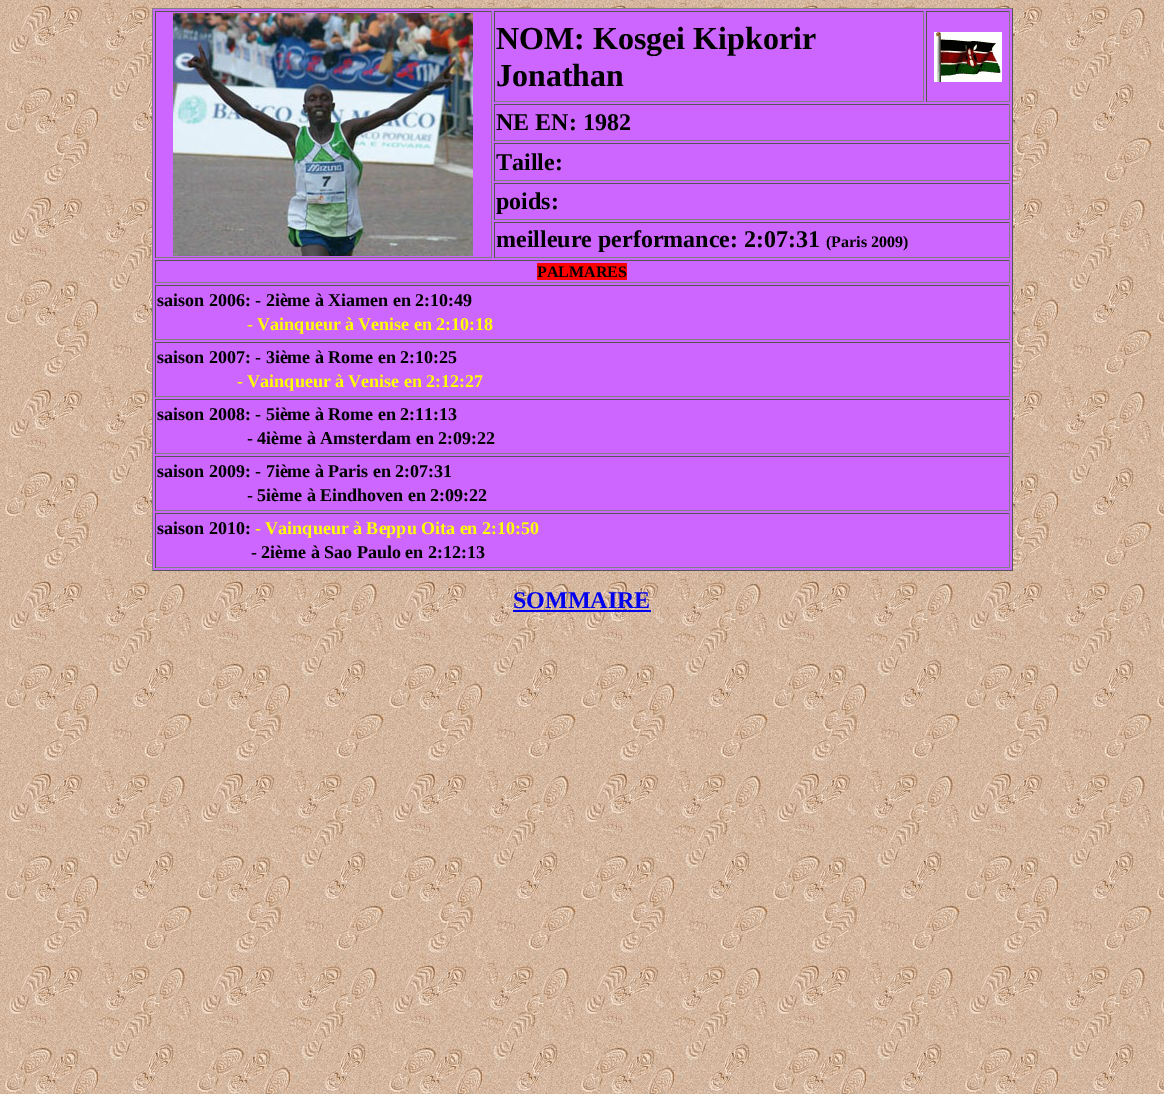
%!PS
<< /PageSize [1164 1094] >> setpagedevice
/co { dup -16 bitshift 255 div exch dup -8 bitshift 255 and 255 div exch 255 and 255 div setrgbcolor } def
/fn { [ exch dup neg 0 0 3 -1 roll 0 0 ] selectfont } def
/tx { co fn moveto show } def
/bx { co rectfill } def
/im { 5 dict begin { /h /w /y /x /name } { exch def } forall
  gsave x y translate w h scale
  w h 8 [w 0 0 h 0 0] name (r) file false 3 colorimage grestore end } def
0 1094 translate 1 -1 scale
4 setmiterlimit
0 0 1164 1094 16#FFFFFF bx
(media/1.raw) 0 0 1164 1094 im
153 9 859 561 16#CC66FF bx
152 8 861 1 16#808080 bx
1012 8 1 563 16#555555 bx
152 570 861 1 16#555555 bx
152 8 1 563 16#808080 bx
155 11 337 1 16#555555 bx
491 11 1 247 16#808080 bx
155 257 337 1 16#808080 bx
155 11 1 247 16#555555 bx
(media/2.raw) 173 13 300 243 im
494 11 430 1 16#555555 bx
923 11 1 91 16#808080 bx
494 101 430 1 16#808080 bx
494 11 1 91 16#555555 bx
926 11 84 1 16#555555 bx
1009 11 1 91 16#808080 bx
926 101 84 1 16#808080 bx
926 11 1 91 16#555555 bx
(media/3.raw) 934 32 68 50 im
494 104 516 1 16#555555 bx
1009 104 1 37 16#808080 bx
494 140 516 1 16#808080 bx
494 104 1 37 16#555555 bx
494 143 516 1 16#555555 bx
1009 143 1 38 16#808080 bx
494 180 516 1 16#808080 bx
494 143 1 38 16#555555 bx
494 183 516 1 16#555555 bx
1009 183 1 37 16#808080 bx
494 219 516 1 16#808080 bx
494 183 1 37 16#555555 bx
494 222 516 1 16#555555 bx
1009 222 1 36 16#808080 bx
494 257 516 1 16#808080 bx
494 222 1 36 16#555555 bx
155 260 855 1 16#555555 bx
1009 260 1 23 16#808080 bx
155 282 855 1 16#808080 bx
155 260 1 23 16#555555 bx
537 263 90 17 16#FF0000 bx
155 285 855 1 16#555555 bx
1009 285 1 55 16#808080 bx
155 339 855 1 16#808080 bx
155 285 1 55 16#555555 bx
155 342 855 1 16#555555 bx
1009 342 1 55 16#808080 bx
155 396 855 1 16#808080 bx
155 342 1 55 16#555555 bx
155 399 855 1 16#555555 bx
1009 399 1 55 16#808080 bx
155 453 855 1 16#808080 bx
155 399 1 55 16#555555 bx
155 456 855 1 16#555555 bx
1009 456 1 55 16#808080 bx
155 510 855 1 16#808080 bx
155 456 1 55 16#555555 bx
155 513 855 1 16#555555 bx
1009 513 1 55 16#808080 bx
155 567 855 1 16#808080 bx
155 513 1 55 16#555555 bx
513 610 138 2 16#0000EE bx
(NOM: Kosgei Kipkorir) 496 49 /LiberationSerif-Bold 32 16#000000 tx
(Jonathan) 496 86 /LiberationSerif-Bold 32 16#000000 tx
(NE EN: 1982) 496 130 /LiberationSerif-Bold 24 16#000000 tx
(Taille:) 496 170 /LiberationSerif-Bold 24 16#000000 tx
(poids:) 496 209 /LiberationSerif-Bold 24 16#000000 tx
(meilleure performance: 2:07:31) 496 247 /LiberationSerif-Bold 24 16#000000 tx
(\(Paris 2009\)) 826 247 /LiberationSerif-Bold 16 16#000000 tx
(PALMARES) 537 277 /LiberationSerif-Bold 16 16#000000 tx
(saison 2006: - 2ième à Xiamen en 2:10:49) 157 306 /LiberationSerif-Bold 18 16#000000 tx
(- Vainqueur à Venise en 2:10:18) 247 330 /LiberationSerif-Bold 18 16#FFFF00 tx
(saison 2007: - 3ième à Rome en 2:10:25) 157 363 /LiberationSerif-Bold 18 16#000000 tx
(- Vainqueur à Venise en 2:12:27) 237 387 /LiberationSerif-Bold 18 16#FFFF00 tx
(saison 2008: - 5ième à Rome en 2:11:13) 157 420 /LiberationSerif-Bold 18 16#000000 tx
(- 4ième à Amsterdam en 2:09:22) 247 444 /LiberationSerif-Bold 18 16#000000 tx
(saison 2009: - 7ième à Paris en 2:07:31) 157 477 /LiberationSerif-Bold 18 16#000000 tx
(- 5ième à Eindhoven en 2:09:22) 247 501 /LiberationSerif-Bold 18 16#000000 tx
(saison 2010:) 157 534 /LiberationSerif-Bold 18 16#000000 tx
(- Vainqueur à Beppu Oita en 2:10:50) 255 534 /LiberationSerif-Bold 18 16#FFFF00 tx
(- 2ième à Sao Paulo en 2:12:13) 251 558 /LiberationSerif-Bold 18 16#000000 tx
(SOMMAIRE) 513 608 /LiberationSerif-Bold 24 16#0000EE tx
showpage
